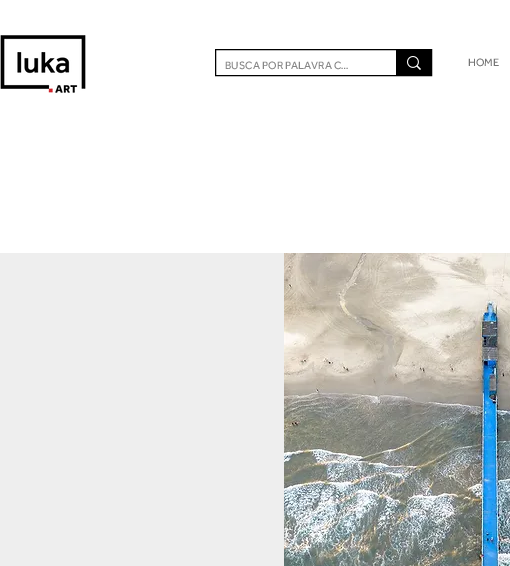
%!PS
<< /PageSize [510 566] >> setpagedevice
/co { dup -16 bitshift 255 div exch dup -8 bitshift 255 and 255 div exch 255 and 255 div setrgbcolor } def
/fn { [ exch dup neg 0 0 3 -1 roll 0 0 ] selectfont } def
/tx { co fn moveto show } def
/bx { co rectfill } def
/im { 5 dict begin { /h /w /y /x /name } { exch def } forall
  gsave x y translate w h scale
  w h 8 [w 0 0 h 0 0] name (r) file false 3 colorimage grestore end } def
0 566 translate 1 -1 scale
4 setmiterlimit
0 0 510 566 16#FFFFFF bx
(media/1.raw) 0 35 86 58 im
16#000000 co
215.5 49.5 216 26 rectstroke
396 50 35 25 16#000000 bx
(media/2.raw) 407 56 14 14 im
0 253 284 313 16#EEEEEE bx
(media/3.raw) 284 253 226 313 im
(BUSCA POR PALAVRA C…) 225 69 /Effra-Regular 11 16#858585 tx
(HOME) 468 66 /Effra-Regular 11 16#757575 tx
showpage
